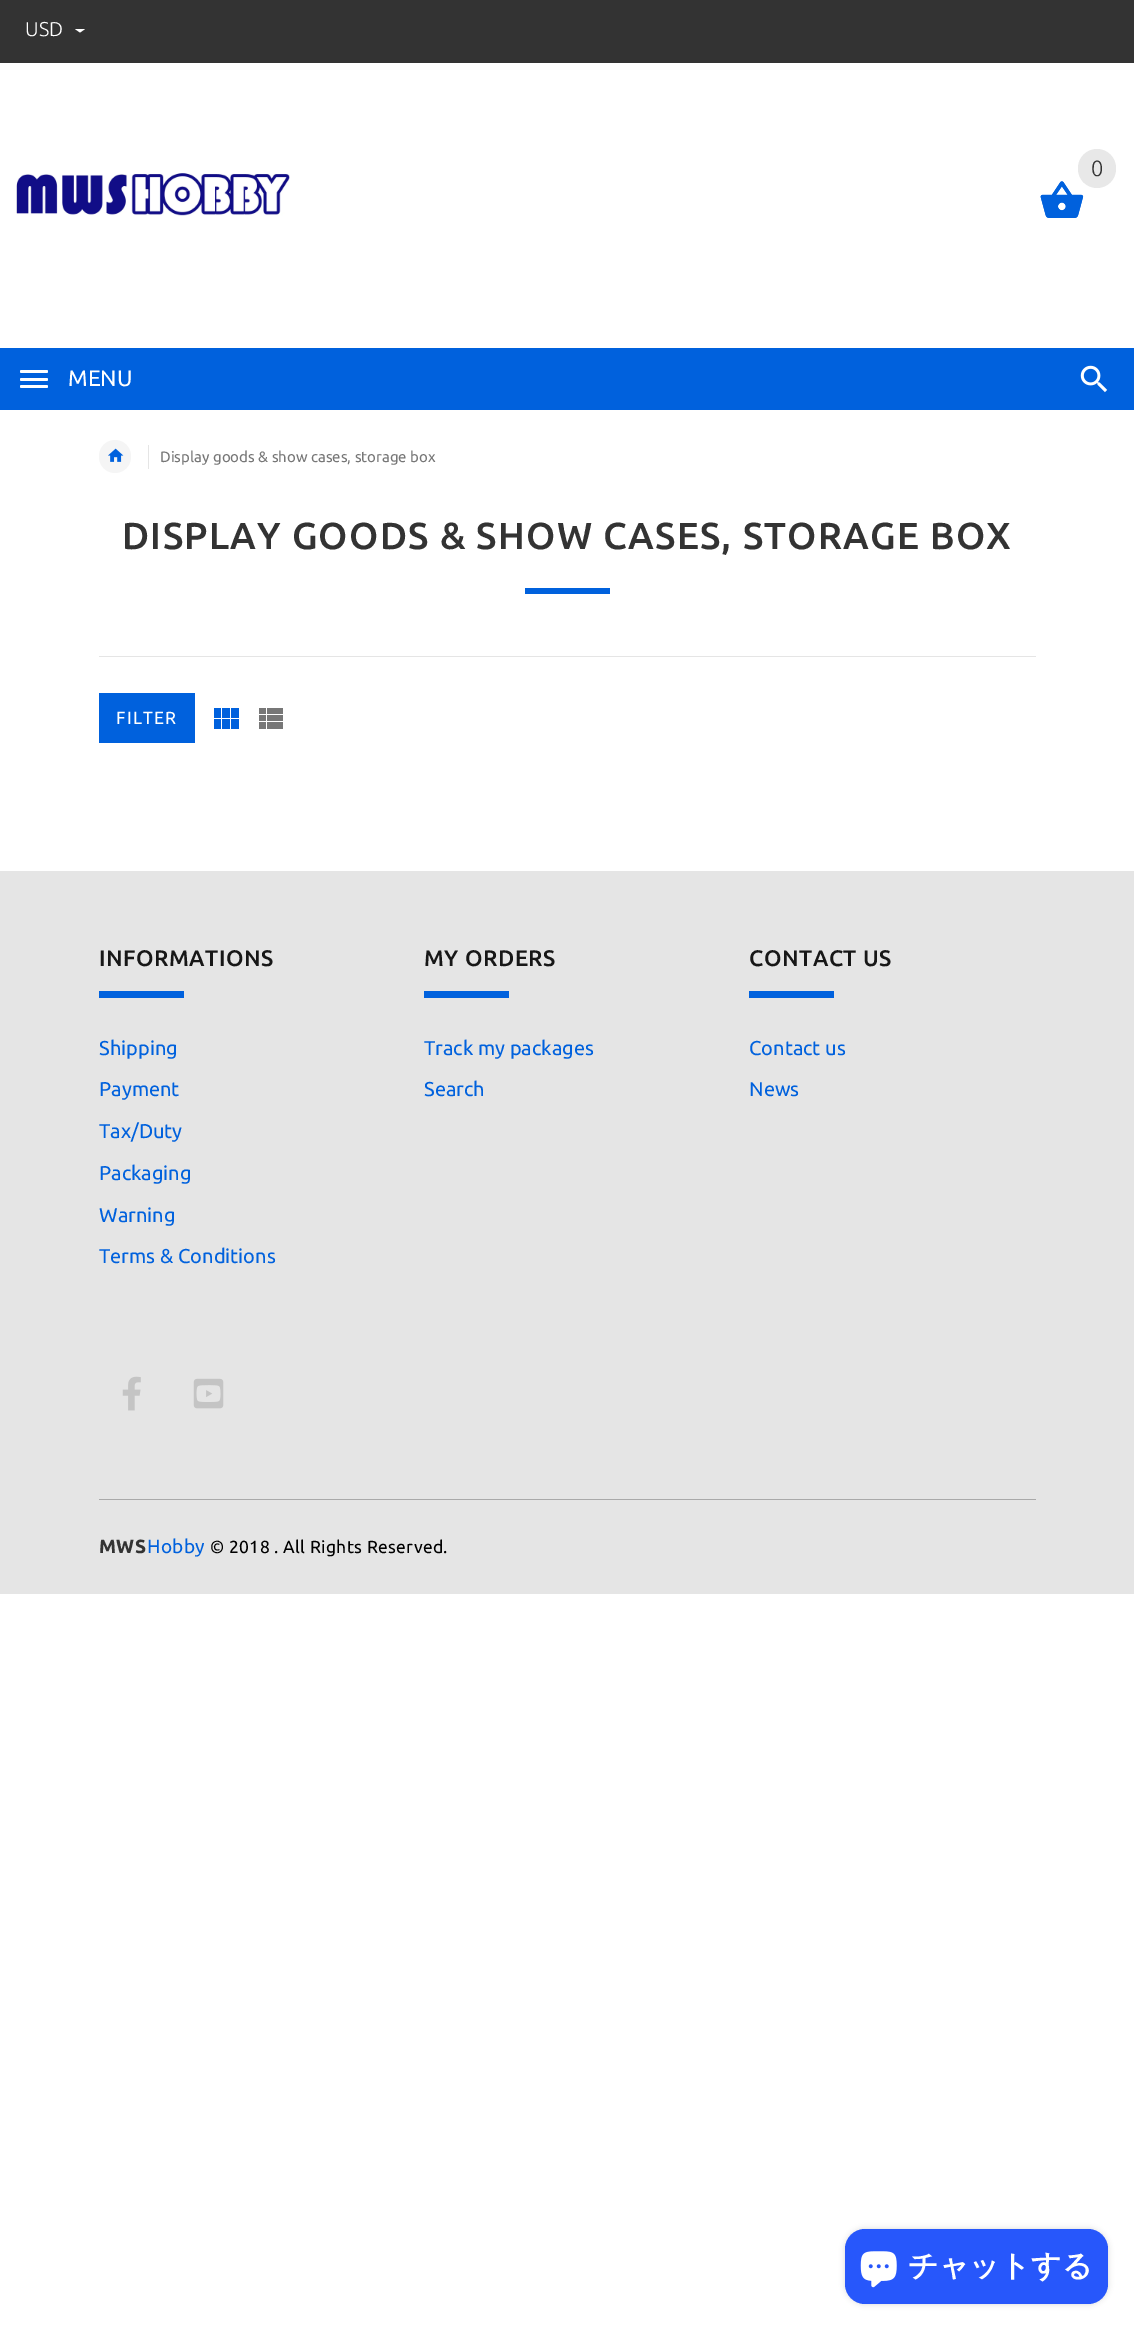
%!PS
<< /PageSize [1134 2329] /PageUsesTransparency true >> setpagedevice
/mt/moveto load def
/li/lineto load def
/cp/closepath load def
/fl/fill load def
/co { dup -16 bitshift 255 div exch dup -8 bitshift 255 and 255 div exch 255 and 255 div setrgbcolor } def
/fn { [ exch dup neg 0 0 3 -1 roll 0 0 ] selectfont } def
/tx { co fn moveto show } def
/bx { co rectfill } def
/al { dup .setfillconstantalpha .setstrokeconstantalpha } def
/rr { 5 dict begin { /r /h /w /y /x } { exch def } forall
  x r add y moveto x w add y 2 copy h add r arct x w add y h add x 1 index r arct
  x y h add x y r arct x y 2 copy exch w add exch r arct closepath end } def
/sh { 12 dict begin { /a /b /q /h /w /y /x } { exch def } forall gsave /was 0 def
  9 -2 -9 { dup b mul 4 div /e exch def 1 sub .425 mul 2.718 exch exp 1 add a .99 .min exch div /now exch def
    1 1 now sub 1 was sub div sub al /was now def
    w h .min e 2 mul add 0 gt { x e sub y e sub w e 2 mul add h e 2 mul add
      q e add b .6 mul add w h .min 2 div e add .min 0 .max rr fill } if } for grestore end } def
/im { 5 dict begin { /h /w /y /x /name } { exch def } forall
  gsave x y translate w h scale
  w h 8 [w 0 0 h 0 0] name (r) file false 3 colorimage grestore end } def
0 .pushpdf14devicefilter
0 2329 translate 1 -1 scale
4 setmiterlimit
0 0 1134 2329 16#FFFFFF bx
0 0 1134 63 16#333333 bx
16#FFFFFF co
75 29 mt 85 29 li 80 32.5 li cp fl
(media/4.raw) 1040 181 44 37 im
(media/1.raw) 1040 181 44 37 im
16#E8E8E8 co
1078 149 38 39 19 rr fl
0 348 1134 62 16#0061DD bx
(media/2.raw) 1080 365 28 28 im
16#FFFFFF co
20 370 28 3 1.5 rr fl
20 378 28 3 1.5 rr fl
20 385 28 3 1.5 rr fl
(media/3.raw) 16 173 274 43 im
16#F5F5F5 co
99 440 32 33 16 rr fl
(media/5.raw) 108 448 16 14 im
148 445 1 24 16#E5E5E5 bx
525 588 85 6 16#0061DD bx
99 656 937 1 16#E5E5E5 bx
99 693 96 50 16#0061DD bx
214 708 25 21 16#0061DD bx
214 718 25 1 16#FFFFFF bx
221 708 1 21 16#FFFFFF bx
230 708 1 21 16#FFFFFF bx
259 708 24 21 16#777777 bx
259 714 24 1 16#FFFFFF bx
266 708 1 21 16#FFFFFF bx
259 721 24 1 16#FFFFFF bx
0 871 1134 723 16#E5E5E5 bx
99 991 85 7 16#0061DD bx
424 991 85 7 16#0061DD bx
749 991 85 7 16#0061DD bx
(media/6.raw) 122 1376 19 35 im
(media/7.raw) 193 1378 31 31 im
99 1499 937 1 16#A9A9A9 bx
16#000000 co
845 2229 263 75 20 3 .15 sh
16#2757FB co
845 2229 263 75 20 rr fl
(media/8.raw) 860 2251 37 37 im
(USD) 25 36 /Ubuntu-Light 20 16#FFFFFF tx
(0) 1091 176 /Ubuntu-Light 22 16#333333 tx
(MENU) 68 386 /Ubuntu-Regular 22.5 16#FFFFFF tx
(Display goods & show cases, storage box) 160 462 /Ubuntu-Regular 15 16#777777 tx
/Ubuntu-Medium 37.5 fn
16#333333 co
122 549 mt 1.25 0 (DISPLAY GOODS & SHOW CASES, STORAGE BOX) ashow
/Ubuntu-Regular 17.5 fn
16#FFFFFF co
116 724 mt 1.25 0 (FILTER) ashow
/Ubuntu-Medium 22.5 fn
16#171717 co
99 966 mt .5 0 (INFORMATIONS) ashow
(Shipping) 99 1055 /Ubuntu-Regular 20 16#0061DD tx
(Payment) 99 1096 /Ubuntu-Regular 20 16#0061DD tx
(Tax/Duty) 99 1138 /Ubuntu-Regular 20 16#0061DD tx
(Packaging) 99 1180 /Ubuntu-Regular 20 16#0061DD tx
(Warning) 99 1222 /Ubuntu-Regular 20 16#0061DD tx
(Terms & Conditions) 99 1263 /Ubuntu-Regular 20 16#0061DD tx
/Ubuntu-Medium 22.5 fn
16#171717 co
424 966 mt .5 0 (MY ORDERS) ashow
(Track my packages) 424 1055 /Ubuntu-Regular 20 16#0061DD tx
(Search) 424 1096 /Ubuntu-Regular 20 16#0061DD tx
/Ubuntu-Medium 22.5 fn
16#171717 co
749 966 mt .5 0 (CONTACT US) ashow
(Contact us) 749 1055 /Ubuntu-Regular 20 16#0061DD tx
(News) 749 1096 /Ubuntu-Regular 20 16#0061DD tx
/Ubuntu-Bold 19 fn
16#333333 co
99 1553 mt .35 0 (MWS) ashow
/Ubuntu-Regular 19 fn
16#0061DD co
147 1553 mt .35 0 (Hobby) ashow
/Ubuntu-Regular 17.5 fn
16#000000 co
210 1553 mt .35 0 (© 2018 . All Rights Reserved.) ashow
(チャットする) 908 2276 /WenQuanYiZenHei-Bold 30 16#FFFFFF tx
.poppdf14devicefilter showpage
